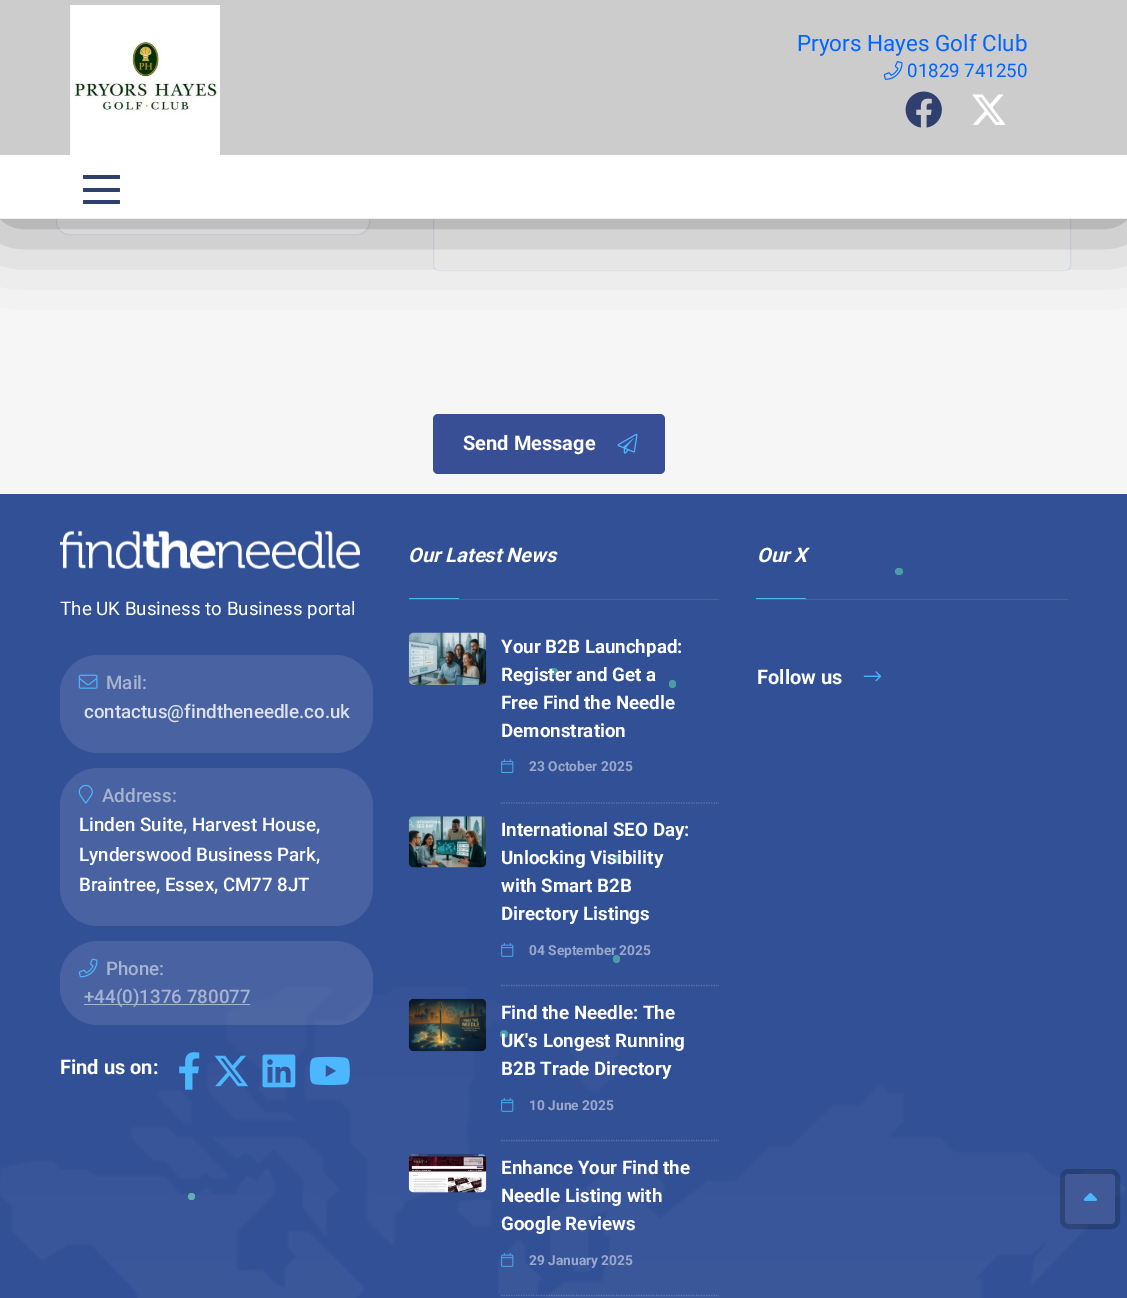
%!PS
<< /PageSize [1127 1298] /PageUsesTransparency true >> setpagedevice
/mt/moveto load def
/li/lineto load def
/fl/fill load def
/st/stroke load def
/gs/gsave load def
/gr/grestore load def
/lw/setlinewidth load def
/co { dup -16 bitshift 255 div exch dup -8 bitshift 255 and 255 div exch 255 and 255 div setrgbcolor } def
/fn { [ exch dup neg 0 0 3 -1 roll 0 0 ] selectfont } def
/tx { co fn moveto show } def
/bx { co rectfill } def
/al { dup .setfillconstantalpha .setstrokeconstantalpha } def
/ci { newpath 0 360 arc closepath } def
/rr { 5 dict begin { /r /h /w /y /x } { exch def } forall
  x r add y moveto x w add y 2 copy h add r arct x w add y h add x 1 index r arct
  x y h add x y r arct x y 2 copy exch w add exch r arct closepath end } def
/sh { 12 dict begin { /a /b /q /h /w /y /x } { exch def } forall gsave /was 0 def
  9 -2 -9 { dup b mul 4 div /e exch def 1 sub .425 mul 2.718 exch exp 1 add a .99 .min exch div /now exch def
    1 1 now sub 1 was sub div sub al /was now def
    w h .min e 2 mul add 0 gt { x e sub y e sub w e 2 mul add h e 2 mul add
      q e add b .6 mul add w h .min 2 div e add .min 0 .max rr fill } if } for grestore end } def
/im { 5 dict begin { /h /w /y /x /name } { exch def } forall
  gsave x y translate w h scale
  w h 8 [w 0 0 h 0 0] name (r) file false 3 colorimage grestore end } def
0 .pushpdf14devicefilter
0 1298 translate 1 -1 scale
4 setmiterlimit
0 0 1127 1298 16#F6F6F6 bx
16#FFFFFF co
56.5 -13.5 313 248 12.5 rr gs fl gr
16#E5E7F2 co
st
16#F9F9F9 co
433.5 21.5 637 249 4.5 rr gs fl gr
16#E5E7F2 co
st
16#000000 co
0 0 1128 219 0 40.5 .5 sh
0 155 1127 63 16#FFFFFF bx
0 218 1127 1 16#EEEEEE bx
0 0 1127 155 16#CCCCCC bx
(media/1.raw) 70 5 150 150 im
(media/2.raw) 883 61 20 19 im
(media/3.raw) 905 91 37 37 im
(media/4.raw) 972 94 34 31 im
16#2F3F6E co
83 188 37 4 1 rr fl
83 175 37 4 1 rr fl
83 200 37 4 1 rr fl
16#384F95 co
433 414 232 60 5 rr fl
(media/5.raw) 617 433 21 21 im
0 494 1127 804 16#325096 bx
(media/6.raw) 60 530 300 39 im
16#4963A2 co
60 655 313 98 38 rr fl
(media/7.raw) 78 674 20 15 im
60 768 313 158 38 rr fl
(media/8.raw) 78 784 15 20 im
(media/22.raw) 0 987 1126 311 im
0.11 al
16#FFFFFF co
60 941 313 84 38 rr fl
1 al
(media/9.raw) 78 958 20 20 im
0.51 al
84 1004 166 1 16#FFFFFF bx
1 al
(media/10.raw) 179 1052 21 38 im
(media/11.raw) 214 1055 34 32 im
(media/12.raw) 262 1054 34 34 im
(media/13.raw) 309 1056 41 29 im
409 599 310 1 16#4963A2 bx
409 598 50 1 16#4DB7FE bx
(media/14.raw) 408 632 79 53 im
(media/15.raw) 501 759 13 14 im
16#5D75AC co
1.2 lw
[1.25 1.25] 0 setdash
501 803 mt 719 803 li st
(media/16.raw) 408 816 79 52 im
(media/17.raw) 501 943 13 14 im
501 985.5 mt 719 985.5 li st
(media/18.raw) 408 998 79 54 im
(media/17.raw) 501 1098 13 14 im
501 1140.5 mt 719 1140.5 li st
(media/19.raw) 408 1154 79 39 im
(media/20.raw) 501 1253 13 14 im
0.21 al
16#FFFFFF co
501 1295.5 mt 719 1295.5 li st
1 al
756 599 312 1 16#4963A2 bx
756 598 50 1 16#4DB7FE bx
(media/21.raw) 863 671 19 11 im
16#4C9CA6 co
895 568 8 7 3.5 rr fl
550 668 8 7 3.5 rr fl
669 680 7 8 3.5 rr fl
613 855 7 8 3.5 rr fl
613 955 7 8 3.5 rr fl
504 1034 4 ci fl
0.24 al
16#FFFFFF co
191.5 1196.5 3.5 ci fl
0.6 al
16#5ECFB1 co
191.5 1196.5 3.5 ci fl
0.2 al
16#000000 co
5 lw
[] 0 setdash
1062.5 1171.5 55 55 6.5 rr st
1 al
16#425998 co
1065 1174 50 50 4 rr fl
(media/23.raw) 1083 1193 14 8 im
(Pryors Hayes Golf Club) 797 51 /Roboto-Regular 22.5 16#0066FF tx
(01829 741250) 907 77 /Roboto-Regular 18.75 16#0066FF tx
(Send Message) 463 450 /Roboto-Bold 20 16#FFFFFF tx
(The UK Business to Business portal) 60 615 /Roboto-Regular 18.75 16#FFFFFF tx
(Mail:) 106 689 /Roboto-Medium 18.75 16#A6B3D1 tx
(contactus@findtheneedle.co.uk) 84 718 /Roboto-Medium 18.75 16#DCE1ED tx
(Address:) 102 802 /Roboto-Medium 18.75 16#A6B3D1 tx
(Linden Suite, Harvest House,) 79 831 /Roboto-Medium 18.75 16#FFFFFF tx
(Lynderswood Business Park,) 79 861 /Roboto-Medium 18.75 16#FFFFFF tx
(Braintree, Essex, CM77 8JT) 79 891 /Roboto-Medium 18.75 16#FFFFFF tx
(Phone:) 106 975 /Roboto-Medium 18.75 16#A6B3D1 tx
(+44\(0\)1376 780077) 84 1003 /Roboto-Medium 18.75 16#A6B3D1 tx
(Find us on:) 60 1074 /Roboto-Bold 20 16#FFFFFF tx
(Our Latest News) 408 562 /Roboto-BoldItalic 20 16#FFFFFF tx
(Your B2B Launchpad:) 501 653 /Roboto-Bold 18.75 16#FFFFFF tx
(Register and Get a) 501 681 /Roboto-Bold 18.75 16#FFFFFF tx
(Free Find the Needle) 501 709 /Roboto-Bold 18.75 16#FFFFFF tx
(Demonstration) 501 737 /Roboto-Bold 18.75 16#FFFFFF tx
(23 October 2025) 529 771 /Roboto-Bold 13.75 16#9BA9CC tx
(International SEO Day:) 501 836 /Roboto-Bold 18.75 16#FFFFFF tx
(Unlocking Visibility) 501 864 /Roboto-Bold 18.75 16#FFFFFF tx
(with Smart B2B) 501 892 /Roboto-Bold 18.75 16#FFFFFF tx
(Directory Listings) 501 920 /Roboto-Bold 18.75 16#FFFFFF tx
(04 September 2025) 529 955 /Roboto-Bold 13.75 16#9BA9CC tx
(Find the Needle: The) 501 1019 /Roboto-Bold 18.75 16#FFFFFF tx
(UK's Longest Running) 501 1047 /Roboto-Bold 18.75 16#FFFFFF tx
(B2B Trade Directory) 501 1075 /Roboto-Bold 18.75 16#FFFFFF tx
(10 June 2025) 529 1110 /Roboto-Bold 13.75 16#9BA9CC tx
(Enhance Your Find the) 501 1174 /Roboto-Bold 18.75 16#FFFFFF tx
(Needle Listing with) 501 1202 /Roboto-Bold 18.75 16#FFFFFF tx
(Google Reviews) 501 1230 /Roboto-Bold 18.75 16#FFFFFF tx
(29 January 2025) 529 1265 /Roboto-Bold 13.75 16#9BA9CC tx
(Our X) 757 562 /Roboto-BoldItalic 20 16#FFFFFF tx
(Follow us) 757 684 /Roboto-Bold 20 16#FFFFFF tx
.poppdf14devicefilter showpage
